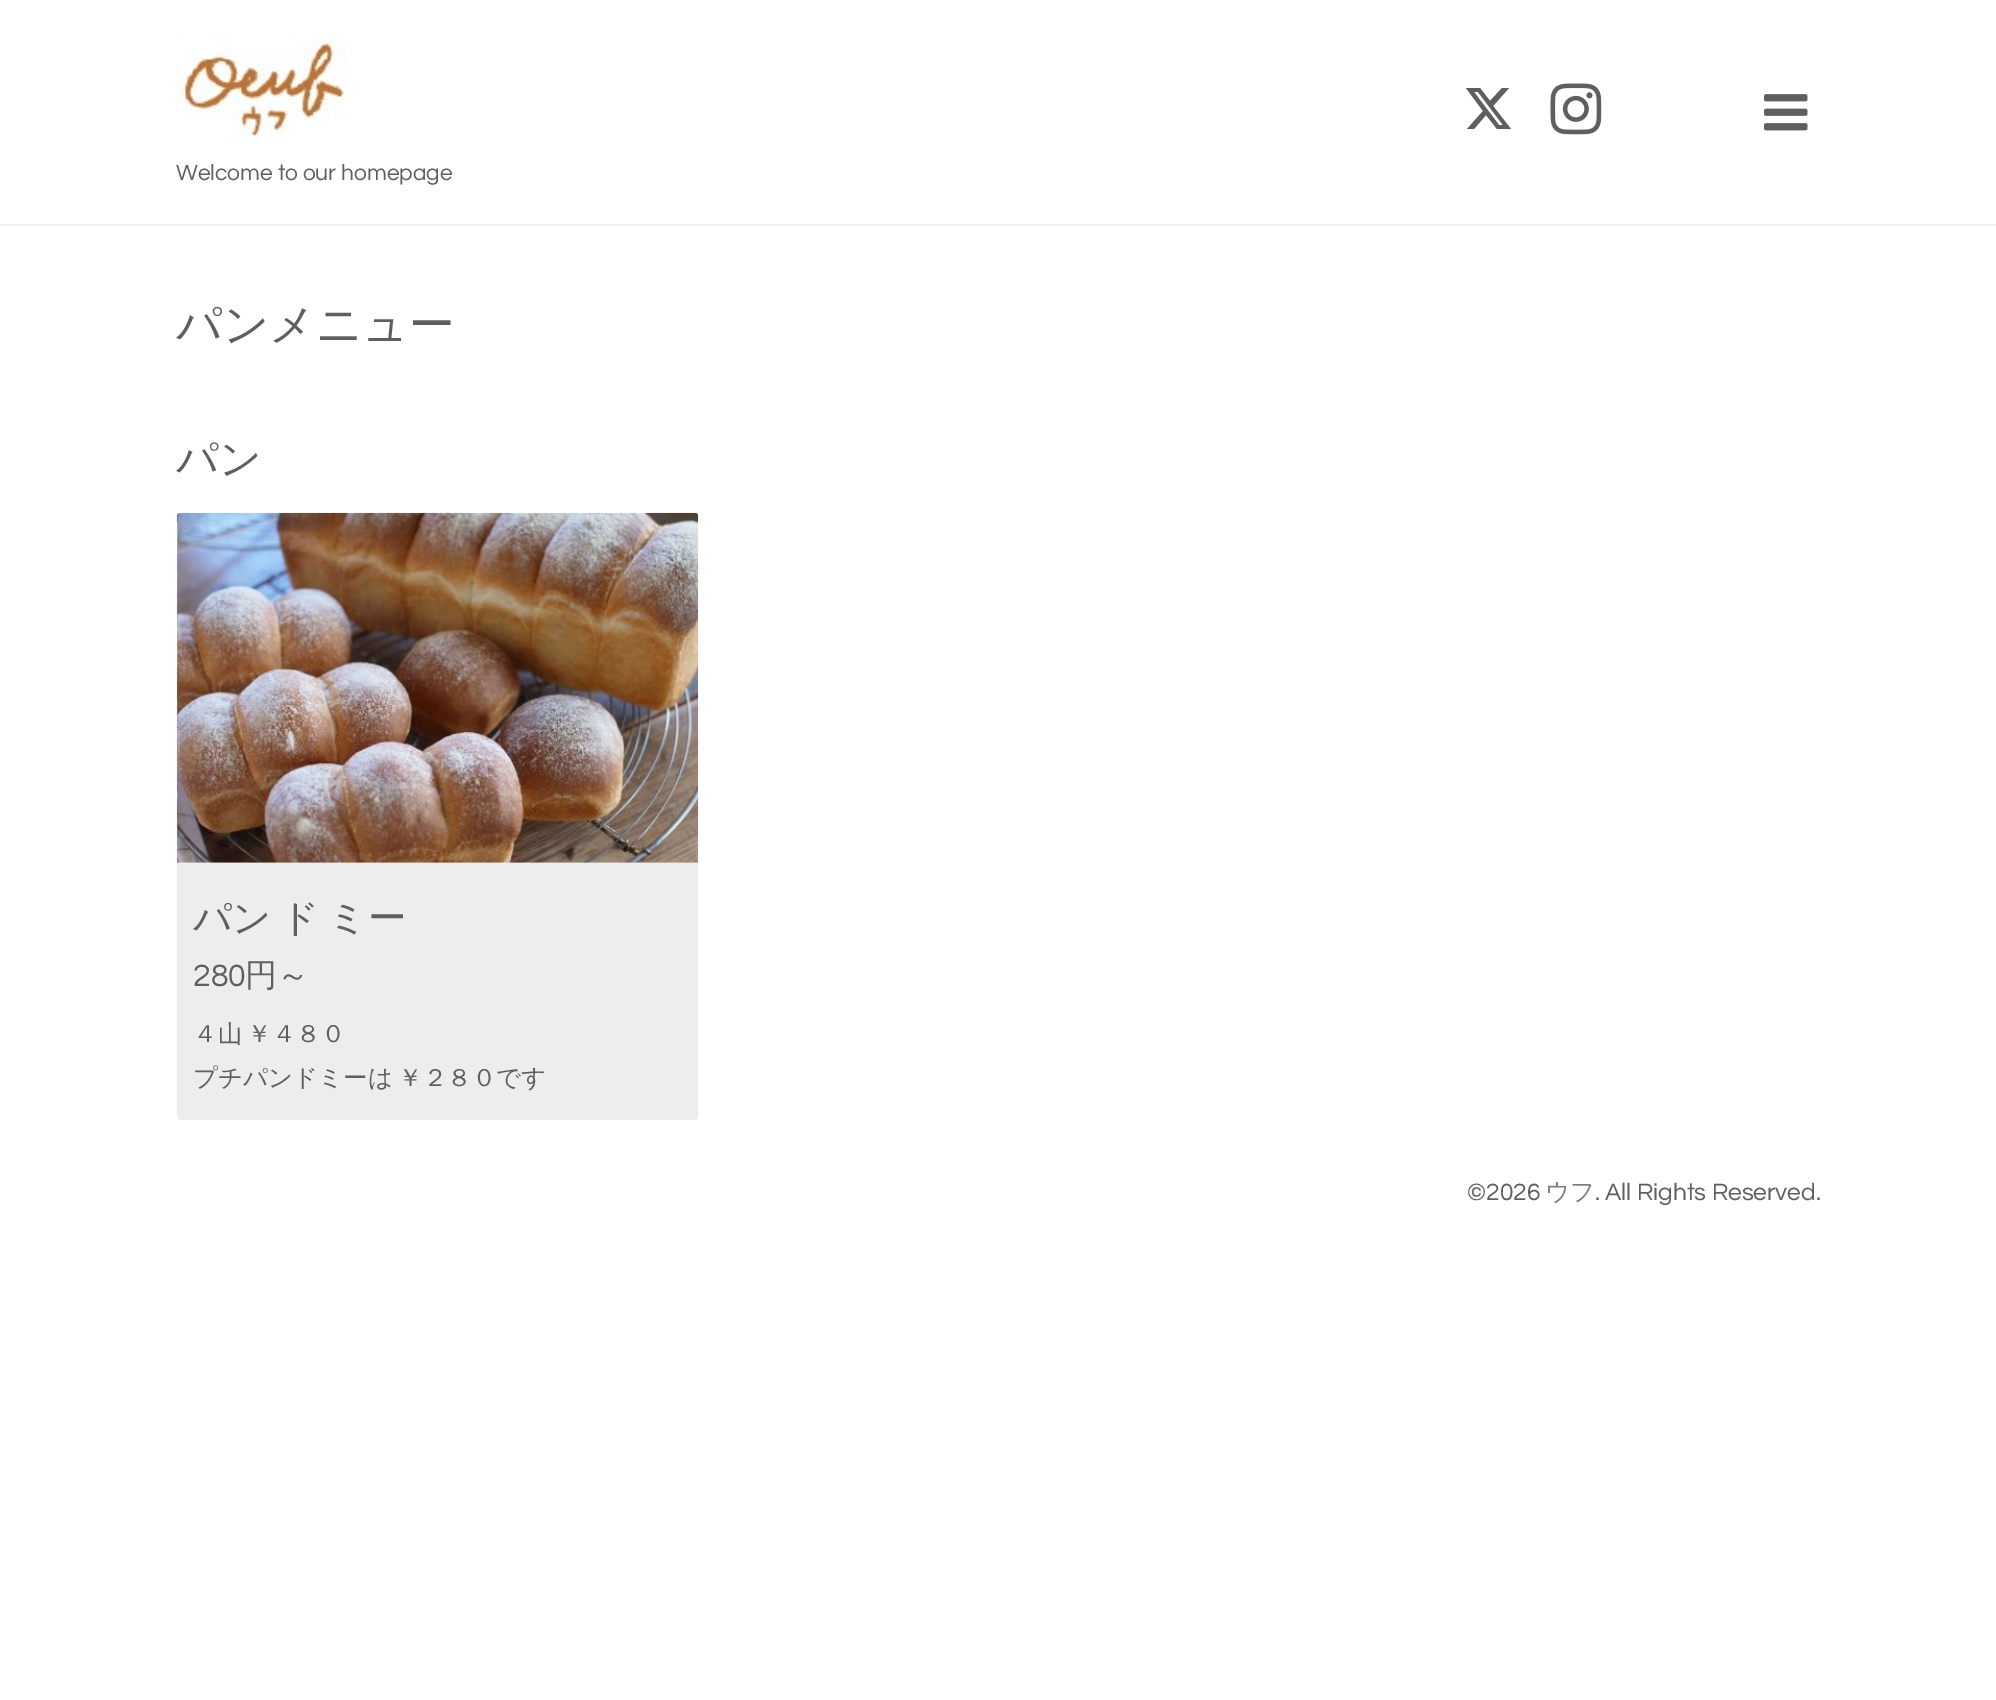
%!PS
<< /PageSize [1996 1700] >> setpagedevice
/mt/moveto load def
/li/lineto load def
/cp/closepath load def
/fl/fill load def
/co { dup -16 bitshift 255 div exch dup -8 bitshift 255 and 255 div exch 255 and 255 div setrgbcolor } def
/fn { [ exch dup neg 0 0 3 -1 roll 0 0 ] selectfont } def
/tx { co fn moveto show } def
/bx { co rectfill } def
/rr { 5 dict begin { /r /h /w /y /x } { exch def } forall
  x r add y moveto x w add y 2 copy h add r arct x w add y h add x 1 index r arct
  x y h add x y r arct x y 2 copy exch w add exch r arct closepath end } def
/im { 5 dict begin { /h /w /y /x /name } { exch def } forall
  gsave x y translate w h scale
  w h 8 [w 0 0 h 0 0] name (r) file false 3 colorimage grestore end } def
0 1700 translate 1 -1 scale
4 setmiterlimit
0 0 1996 1700 16#FFFFFF bx
0 224 1996 2 16#F2F2F2 bx
16#5F5F5F co
1502 88 mt 1509 88 li 1493 106 li 1511 129 li 1497 129 li 1486 115 li 1474 129 li 1467 129 li 1483 111 li 1466 88 li 1480 88 li 1490 101 li cp 1499 125 mt 1503 125 li 1478 92 li 1474 92 li cp fl
(media/1.raw) 1550 83 52 52 im
(media/2.raw) 1764 94 44 37 im
(media/3.raw) 177 35 169 109 im
16#EDEDED co
177 513 521 607 4 rr fl
(media/4.raw) 176 512 523 351 im
(Welcome to our homepage) 176 180 /Questrial-Regular 22.75 16#5F5F5F tx
(パンメニュー) 176 340 /WenQuanYiZenHei-Medium 45.5 16#5F5F5F tx
(パン) 176 473 /WenQuanYiZenHei-Medium 42 16#5F5F5F tx
/WenQuanYiZenHei-Medium 38.5 fn
193 931 mt -3 0 32 (パン ド ミー) widthshow
(280) 193 986 /Questrial-Regular 32 16#5F5F5F tx
(円～) 245 986 /WenQuanYiZenHei-Medium 32 16#5F5F5F tx
/WenQuanYiZenHei-Medium 24.5 fn
193 1042 mt -2 0 32 (４山 ￥４８０) widthshow
193 1086 mt -2 0 32 (プチパンドミーは ￥２８０です) widthshow
(©2026) 1467 1200 /Questrial-Regular 24.5 16#5F5F5F tx
(ウフ) 1545 1200 /WenQuanYiZenHei-Medium 24.5 16#7F7F7F tx
(. All Rights Reserved.) 1595 1200 /Questrial-Regular 24.5 16#5F5F5F tx
showpage
